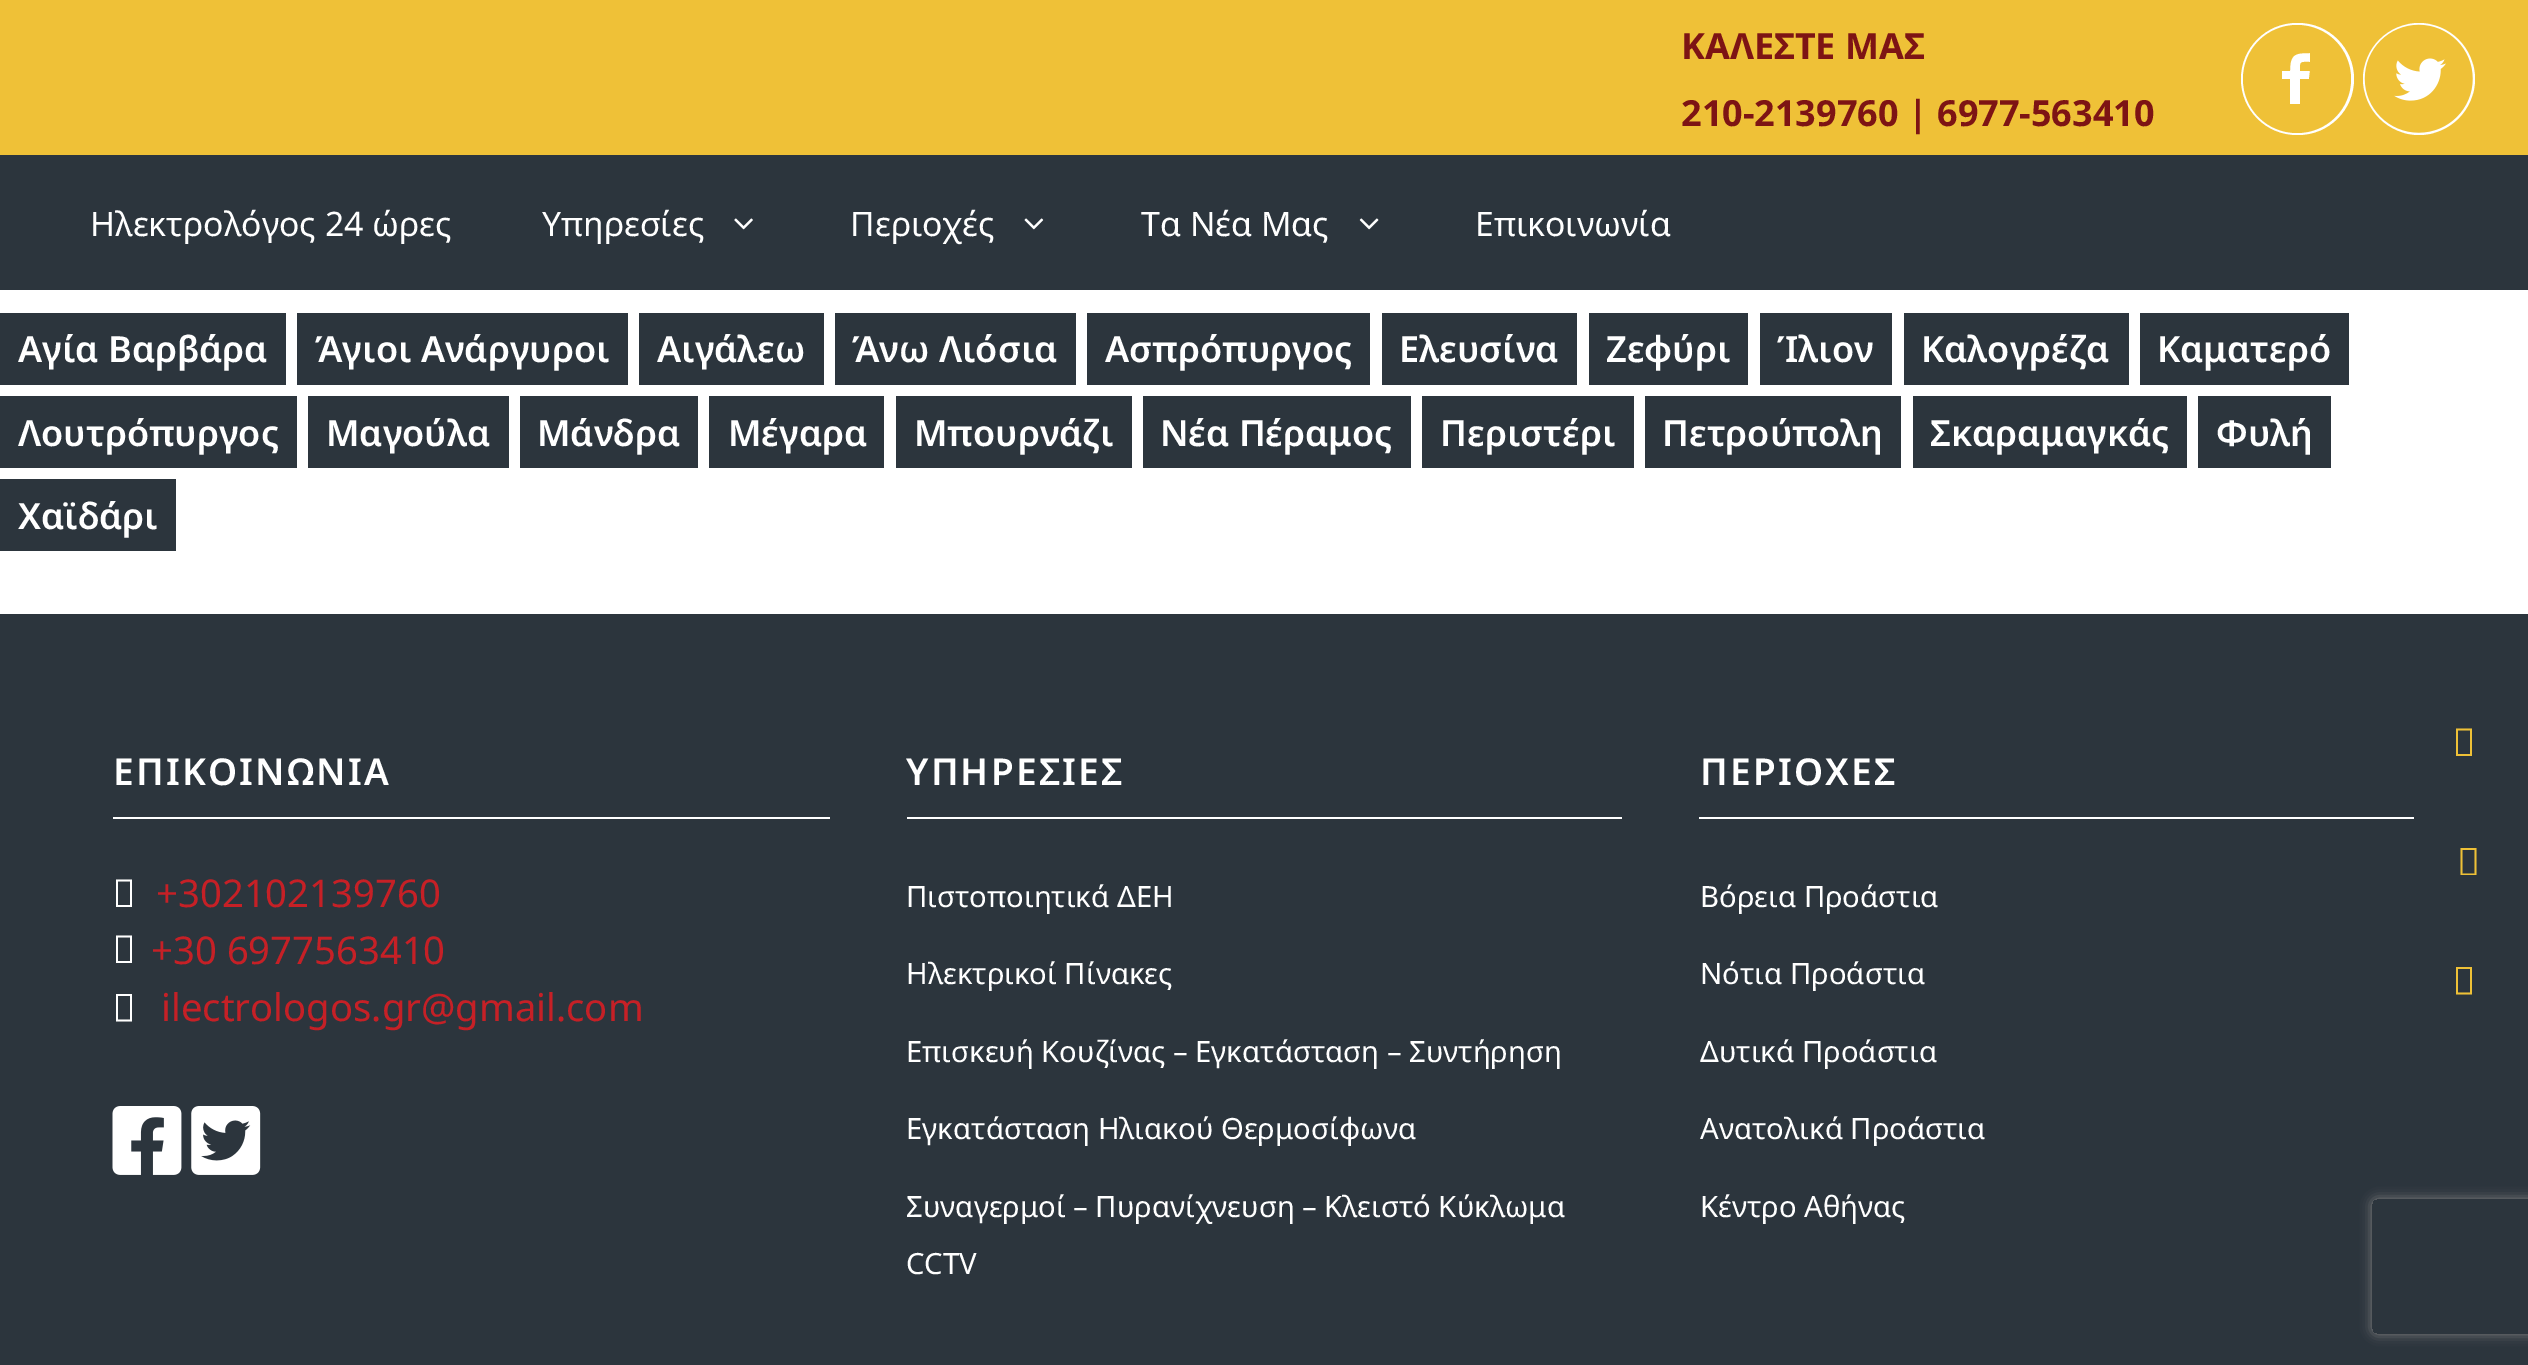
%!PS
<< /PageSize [2528 1365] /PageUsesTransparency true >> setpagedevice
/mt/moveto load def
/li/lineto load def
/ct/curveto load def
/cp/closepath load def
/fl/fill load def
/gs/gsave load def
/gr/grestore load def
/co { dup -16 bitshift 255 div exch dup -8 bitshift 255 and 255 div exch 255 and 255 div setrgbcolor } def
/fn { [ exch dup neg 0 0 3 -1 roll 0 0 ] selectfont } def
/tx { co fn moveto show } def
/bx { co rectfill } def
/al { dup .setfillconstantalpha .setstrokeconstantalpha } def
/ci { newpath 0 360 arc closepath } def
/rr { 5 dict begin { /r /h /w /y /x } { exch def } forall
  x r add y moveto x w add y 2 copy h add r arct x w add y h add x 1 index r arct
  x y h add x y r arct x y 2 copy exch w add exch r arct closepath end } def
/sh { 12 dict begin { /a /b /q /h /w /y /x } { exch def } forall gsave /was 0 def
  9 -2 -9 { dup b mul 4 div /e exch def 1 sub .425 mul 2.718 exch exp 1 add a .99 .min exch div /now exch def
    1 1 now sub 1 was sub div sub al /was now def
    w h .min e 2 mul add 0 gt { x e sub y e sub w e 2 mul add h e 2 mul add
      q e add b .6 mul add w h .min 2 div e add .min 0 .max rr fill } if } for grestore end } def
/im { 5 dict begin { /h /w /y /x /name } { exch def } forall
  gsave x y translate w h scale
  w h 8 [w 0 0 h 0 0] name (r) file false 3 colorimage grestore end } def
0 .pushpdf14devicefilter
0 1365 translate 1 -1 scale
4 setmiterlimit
0 0 2528 1365 16#FFFFFF bx
0 0 2528 155 16#EFC137 bx
16#FFFFFF co
2241 23 113 112 56 rr fl
16#EFC137 co
2297 25 mt 2267 25 2243 49 2243 79 ct 2243 109 2267 133 2297 133 ct 2327 133 2351 109 2351 79 ct 2351 49 2327 25 2297 25 ct cp 2310 62 mt 2300 62 2300 61 2300 71 ct 2310 71 li 2309 79 li 2300 79 li 2300 104 li 2290 104 li 2290 79 li 2282 79 li 2282 71 li 2290 71 li 2290 54 2295 53 2310 53 ct cp fl
16#FFFFFF co
2419 79 56 ci fl
(media/1.raw) 2364 24 109 109 im
0 155 2528 135 16#2C353D bx
(media/2.raw) 734 218 19 12 im
(media/3.raw) 1024 218 20 12 im
(media/4.raw) 1359 218 20 12 im
0 313 286 72 16#2C353D bx
297 313 331 72 16#2C353D bx
639 313 185 72 16#2C353D bx
835 313 241 72 16#2C353D bx
1087 313 283 72 16#2C353D bx
1382 313 195 72 16#2C353D bx
1589 313 159 72 16#2C353D bx
1760 313 132 72 16#2C353D bx
1904 313 225 72 16#2C353D bx
2140 313 209 72 16#2C353D bx
0 396 297 72 16#2C353D bx
308 396 201 72 16#2C353D bx
520 396 178 72 16#2C353D bx
709 396 175 72 16#2C353D bx
896 396 236 72 16#2C353D bx
1143 396 268 72 16#2C353D bx
1422 396 212 72 16#2C353D bx
1645 396 256 72 16#2C353D bx
1913 396 274 72 16#2C353D bx
2198 396 133 72 16#2C353D bx
0 479 176 72 16#2C353D bx
0 614 2528 751 16#2C353D bx
16#EFC137 co
2456 756 mt 2456 728.5 li 2472 728.5 li 2472 756 li cp 2458 754 mt 2470 754 li 2470 730.5 li 2458 730.5 li cp fl
1699 817 718 2 16#FFFFFF bx
2414 817 3 2 16#2C353D bx
16#EFC137 co
2460.5 875 mt 2460.5 848 li 2476.5 848 li 2476.5 875 li cp 2462.5 873.5 mt 2474.5 873.5 li 2474.5 850 li 2462.5 850 li cp fl
2456 994.5 mt 2456 967 li 2472 967 li 2472 994.5 li cp 2458 992.5 mt 2470 992.5 li 2470 969 li 2458 969 li cp fl
113 817 717 2 16#FFFFFF bx
116 907 mt 116 879.5 li 132 879.5 li 132 907 li cp 118 905 mt 130 905 li 130 881.5 li 118 881.5 li cp fl
116 963 mt 116 935.5 li 132 935.5 li 132 963 li cp 118 961 mt 130 961 li 130 937.5 li 118 937.5 li cp fl
116 1021.5 mt 116 994 li 132 994 li 132 1021.5 li cp 118 1019.5 mt 130 1019.5 li 130 996 li 118 996 li cp fl
(media/5.raw) 112 1106 70 69 im
(media/6.raw) 191 1106 70 69 im
907 817 715 2 16#FFFFFF bx
gs
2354 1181 mt 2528 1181 li 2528 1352 li 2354 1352 li cp 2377 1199 mt 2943 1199 li 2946 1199 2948 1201 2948 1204 ct 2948 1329 li 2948 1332 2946 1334 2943 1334 ct 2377 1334 li 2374 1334 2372 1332 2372 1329 ct 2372 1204 li 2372 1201 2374 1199 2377 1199 ct cp eoclip newpath
16#808080 co
2372 1199 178 135 5 5.5 1 sh
gr
(ΚΑΛΕΣΤΕ ΜΑΣ) 1681 59 /NotoSans-Bold 36 16#7D1414 tx
(210-2139760 | 6977-563410) 1681 126 /NotoSans-Bold 36 16#7D1414 tx
(Ηλεκτρολόγος 24 ώρες) 90 236 /NotoSans-Regular 33.75 16#FFFFFF tx
(Υπηρεσίες) 542 236 /NotoSans-Regular 33.75 16#FFFFFF tx
(Περιοχές) 850 236 /NotoSans-Regular 33.75 16#FFFFFF tx
(Τα Νέα Μας) 1141 236 /NotoSans-Regular 33.75 16#FFFFFF tx
(Επικοινωνία) 1475 236 /NotoSans-Regular 33.75 16#FFFFFF tx
(Aγία Βαρβάρα) 18 362 /NotoSans-SemiBold 36 16#FFFFFF tx
(Άγιοι Ανάργυροι) 315 362 /NotoSans-SemiBold 36 16#FFFFFF tx
(Αιγάλεω) 657 362 /NotoSans-SemiBold 36 16#FFFFFF tx
(Άνω Λιόσια) 852 362 /NotoSans-SemiBold 36 16#FFFFFF tx
(Ασπρόπυργος) 1105 362 /NotoSans-SemiBold 36 16#FFFFFF tx
(Ελευσίνα) 1399 362 /NotoSans-SemiBold 36 16#FFFFFF tx
(Ζεφύρι) 1606 362 /NotoSans-SemiBold 36 16#FFFFFF tx
(Ίλιον) 1777 362 /NotoSans-SemiBold 36 16#FFFFFF tx
(Καλογρέζα) 1921 362 /NotoSans-SemiBold 36 16#FFFFFF tx
(Καματερό) 2157 362 /NotoSans-SemiBold 36 16#FFFFFF tx
(Λουτρόπυργος) 18 446 /NotoSans-SemiBold 36 16#FFFFFF tx
(Μαγούλα) 326 446 /NotoSans-SemiBold 36 16#FFFFFF tx
(Μάνδρα) 537 446 /NotoSans-SemiBold 36 16#FFFFFF tx
(Μέγαρα) 728 446 /NotoSans-SemiBold 36 16#FFFFFF tx
(Μπουρνάζι) 914 446 /NotoSans-SemiBold 36 16#FFFFFF tx
(Νέα Πέραμος) 1160 446 /NotoSans-SemiBold 36 16#FFFFFF tx
(Περιστέρι) 1440 446 /NotoSans-SemiBold 36 16#FFFFFF tx
(Πετρούπολη) 1662 446 /NotoSans-SemiBold 36 16#FFFFFF tx
(Σκαραμαγκάς) 1930 446 /NotoSans-SemiBold 36 16#FFFFFF tx
(Φυλή) 2216 446 /NotoSans-SemiBold 36 16#FFFFFF tx
(Χαϊδάρι) 18 529 /NotoSans-SemiBold 36 16#FFFFFF tx
/NotoSans-SemiBold 37 fn
113 785 mt 2.25 0 (ΕΠΙΚΟΙΝΩΝΙΑ) ashow
(+302102139760) 156 907 /NotoSans-Regular 38.25 16#C62026 tx
(+30 6977563410) 151 964 /NotoSans-Regular 38.25 16#C62026 tx
(ilectrologos.gr@gmail.com) 161 1021 /NotoSans-Regular 38.25 16#C62026 tx
/NotoSans-SemiBold 37 fn
16#FFFFFF co
906 785 mt 2.25 0 (ΥΠΗΡΕΣΙΕΣ) ashow
(Πιστοποιητικά ΔΕΗ) 906 907 /NotoSans-Regular 29.25 16#FFFFFF tx
(Ηλεκτρικοί Πίνακες) 906 984 /NotoSans-Regular 29.25 16#FFFFFF tx
(Επισκευή Κουζίνας – Εγκατάσταση – Συντήρηση) 906 1062 /NotoSans-Regular 29.25 16#FFFFFF tx
(Εγκατάσταση Ηλιακού Θερμοσίφωνα) 906 1139 /NotoSans-Regular 29.25 16#FFFFFF tx
(Συναγερμοί – Πυρανίχνευση – Κλειστό Κύκλωμα) 906 1217 /NotoSans-Regular 29.25 16#FFFFFF tx
(CCTV) 906 1274 /NotoSans-Regular 29.25 16#FFFFFF tx
/NotoSans-SemiBold 37 fn
1700 785 mt 2.25 0 (ΠΕΡΙΟΧΕΣ) ashow
(Βόρεια Προάστια) 1700 907 /NotoSans-Regular 29.25 16#FFFFFF tx
(Νότια Προάστια) 1700 984 /NotoSans-Regular 29.25 16#FFFFFF tx
(Δυτικά Προάστια) 1700 1062 /NotoSans-Regular 29.25 16#FFFFFF tx
(Ανατολικά Προάστια) 1700 1139 /NotoSans-Regular 29.25 16#FFFFFF tx
(Κέντρο Αθήνας) 1700 1217 /NotoSans-Regular 29.25 16#FFFFFF tx
.poppdf14devicefilter showpage
